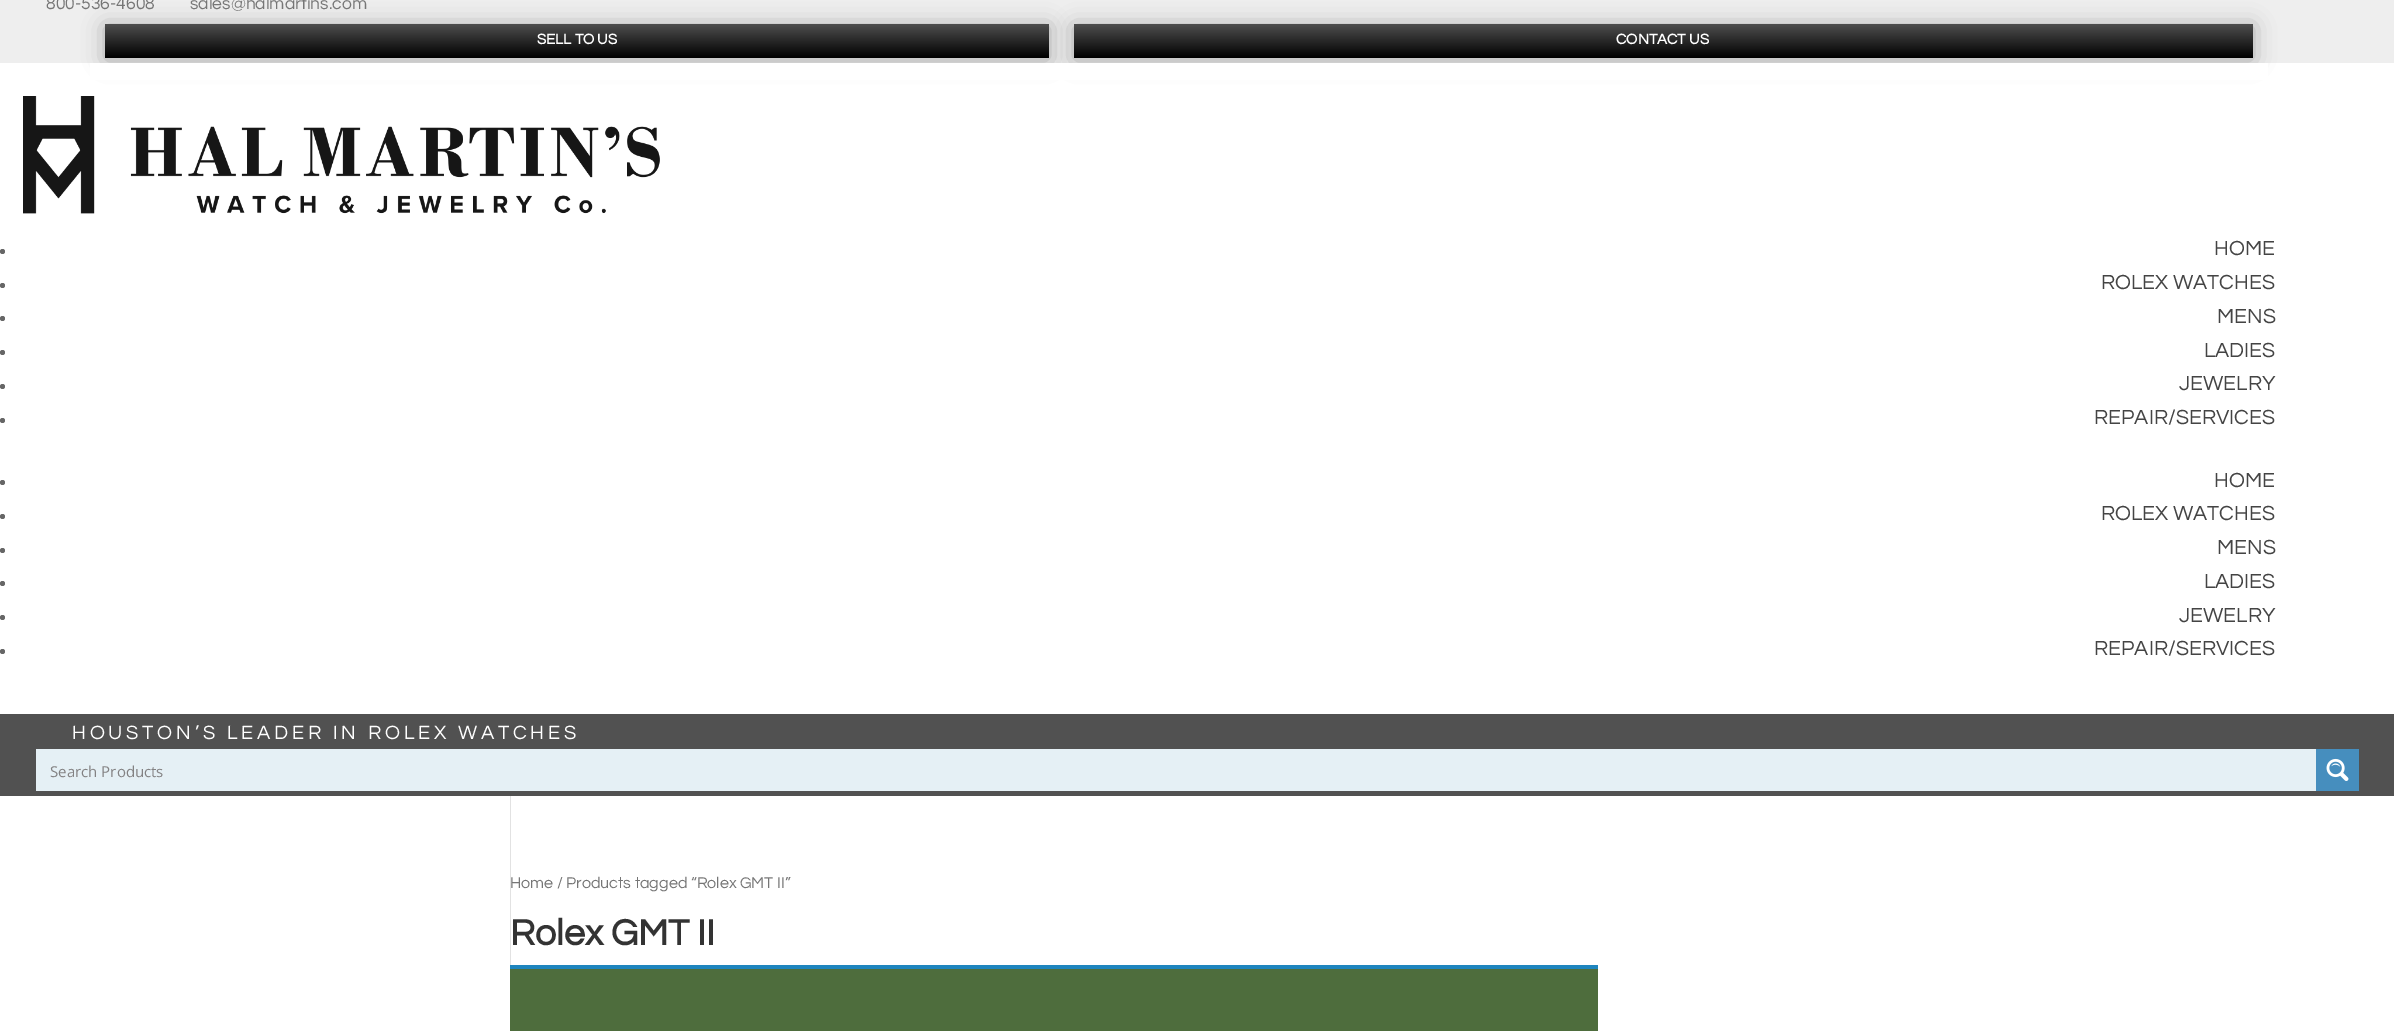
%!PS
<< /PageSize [2394 1031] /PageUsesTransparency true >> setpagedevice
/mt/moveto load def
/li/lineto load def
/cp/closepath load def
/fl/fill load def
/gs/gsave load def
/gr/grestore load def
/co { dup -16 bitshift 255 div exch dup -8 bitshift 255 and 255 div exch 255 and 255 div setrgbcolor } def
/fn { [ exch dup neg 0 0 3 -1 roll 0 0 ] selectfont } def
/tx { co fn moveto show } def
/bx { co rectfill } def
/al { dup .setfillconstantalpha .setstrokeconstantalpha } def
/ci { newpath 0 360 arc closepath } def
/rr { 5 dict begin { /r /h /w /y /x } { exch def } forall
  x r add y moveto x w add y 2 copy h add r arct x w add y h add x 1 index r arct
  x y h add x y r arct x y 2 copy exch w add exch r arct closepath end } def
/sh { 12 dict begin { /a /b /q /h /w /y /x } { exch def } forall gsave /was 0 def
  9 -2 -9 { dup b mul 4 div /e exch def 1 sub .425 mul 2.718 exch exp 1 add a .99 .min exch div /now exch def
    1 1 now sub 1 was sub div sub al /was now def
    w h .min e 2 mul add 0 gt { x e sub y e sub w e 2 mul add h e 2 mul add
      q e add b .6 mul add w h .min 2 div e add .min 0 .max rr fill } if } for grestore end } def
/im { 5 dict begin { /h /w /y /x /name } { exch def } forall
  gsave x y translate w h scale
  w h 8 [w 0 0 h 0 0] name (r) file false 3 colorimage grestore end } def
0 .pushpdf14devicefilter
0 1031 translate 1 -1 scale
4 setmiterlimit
0 0 2394 1031 16#FFFFFF bx
0 0 2394 63 16#EEEEEE bx
16#000000 co
105 26 944 34 0 11 .3 sh
gs 105 24 mt 1049 24 li 1049 58 li 105 58 li cp clip newpath
<< /ShadingType 2 /ColorSpace /DeviceRGB /Coords [577 24 577 58] /Extend [true true] /Function << /FunctionType 3 /Domain [0 1] /Functions [<< /FunctionType 2 /Domain [0 1] /C0 [.31 .31 .31] /C1 [0 0 0] /N 1 >> << /FunctionType 2 /Domain [0 1] /C0 [0 0 0] /C1 [0 0 0] /N 1 >>] /Bounds [.99] /Encode [0 1 0 1] >> >> shfill gr
1074 26 1179 34 0 11 .3 sh
gs 1074 24 mt 2253 24 li 2253 58 li 1074 58 li cp clip newpath
<< /ShadingType 2 /ColorSpace /DeviceRGB /Coords [1663 24 1663 58] /Extend [true true] /Function << /FunctionType 2 /Domain [0 1] /C0 [.31 .31 .31] /C1 [0 0 0] /N 1 >> >> shfill gr
90 63 2178 17 16#FFFFFF bx
(media/1.raw) 23 96 637 118 im
16#666666 co
2.5 251.5 2.5 ci fl
2.5 285.5 2.5 ci fl
2.5 318.5 2.5 ci fl
2.5 352.5 2.5 ci fl
2.5 386.5 2.5 ci fl
2.5 420.5 2.5 ci fl
2.5 482.5 2.5 ci fl
2.5 516.5 2.5 ci fl
2.5 550.5 2.5 ci fl
2.5 583.5 2.5 ci fl
2.5 617.5 2.5 ci fl
2.5 651.5 2.5 ci fl
0 714 2394 82 16#515151 bx
36 749 2280 42 16#E5F0F5 bx
2316 749 43 42 16#468EBE bx
(media/2.raw) 2326 758 23 23 im
510 796 1 169 16#E2E2E2 bx
510 969 1088 62 16#4E6D3D bx
510 965 1088 4 16#1E85BE bx
(800-536-4608) 46 9 /Questrial-Regular 17.5 16#767676 tx
(sales@halmartins.com) 190 9 /Questrial-Regular 17.5 16#767676 tx
(SELL TO US) 537 44 /Questrial-Bold 15 16#FFFFFF tx
(CONTACT US) 1616 44 /Questrial-Bold 15 16#FFFFFF tx
(HOME) 2214 255 /Questrial-Regular 21.25 16#444444 tx
(ROLEX WATCHES) 2101 289 /Questrial-Regular 21.25 16#444444 tx
(MENS) 2217 323 /Questrial-Regular 21.25 16#444444 tx
(LADIES) 2204 357 /Questrial-Regular 21.25 16#444444 tx
(JEWELRY) 2179 390 /Questrial-Regular 21.25 16#444444 tx
(REPAIR/SERVICES) 2094 424 /Questrial-Regular 21.25 16#444444 tx
(HOME) 2214 487 /Questrial-Regular 21.25 16#444444 tx
(ROLEX WATCHES) 2101 520 /Questrial-Regular 21.25 16#444444 tx
(MENS) 2217 554 /Questrial-Regular 21.25 16#444444 tx
(LADIES) 2204 588 /Questrial-Regular 21.25 16#444444 tx
(JEWELRY) 2179 622 /Questrial-Regular 21.25 16#444444 tx
(REPAIR/SERVICES) 2094 655 /Questrial-Regular 21.25 16#444444 tx
/Questrial-Regular 20 fn
16#FFFFFF co
72 739 mt 3.75 0 (HOUSTON’S LEADER IN ROLEX WATCHES) ashow
(Search Products) 50 777 /OpenSans-Regular 15 16#838283 tx
(Home / Products tagged “Rolex GMT II”) 510 888 /Questrial-Regular 16.1 16#767676 tx
(Rolex GMT II) 510 945 /Questrial-Bold 37.5 16#333333 tx
.poppdf14devicefilter showpage
